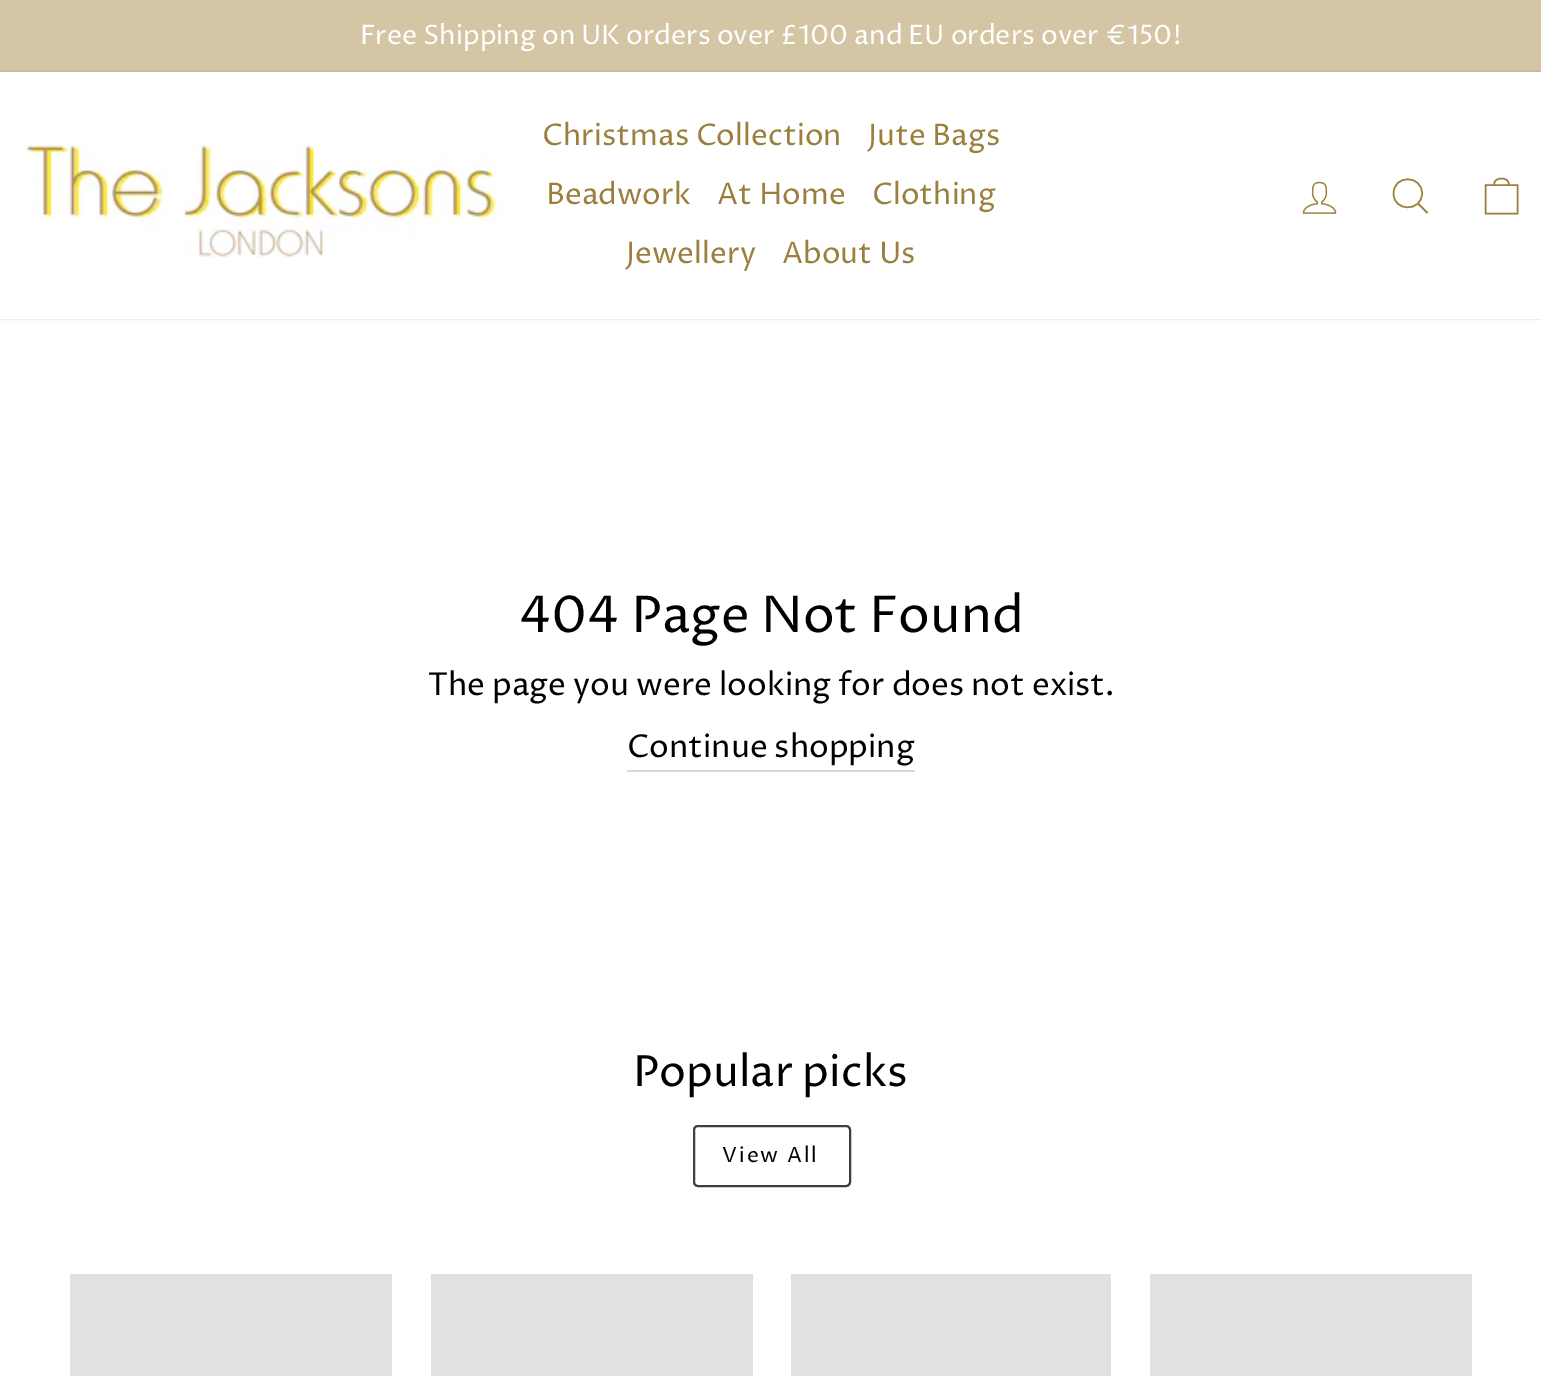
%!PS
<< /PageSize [1541 1376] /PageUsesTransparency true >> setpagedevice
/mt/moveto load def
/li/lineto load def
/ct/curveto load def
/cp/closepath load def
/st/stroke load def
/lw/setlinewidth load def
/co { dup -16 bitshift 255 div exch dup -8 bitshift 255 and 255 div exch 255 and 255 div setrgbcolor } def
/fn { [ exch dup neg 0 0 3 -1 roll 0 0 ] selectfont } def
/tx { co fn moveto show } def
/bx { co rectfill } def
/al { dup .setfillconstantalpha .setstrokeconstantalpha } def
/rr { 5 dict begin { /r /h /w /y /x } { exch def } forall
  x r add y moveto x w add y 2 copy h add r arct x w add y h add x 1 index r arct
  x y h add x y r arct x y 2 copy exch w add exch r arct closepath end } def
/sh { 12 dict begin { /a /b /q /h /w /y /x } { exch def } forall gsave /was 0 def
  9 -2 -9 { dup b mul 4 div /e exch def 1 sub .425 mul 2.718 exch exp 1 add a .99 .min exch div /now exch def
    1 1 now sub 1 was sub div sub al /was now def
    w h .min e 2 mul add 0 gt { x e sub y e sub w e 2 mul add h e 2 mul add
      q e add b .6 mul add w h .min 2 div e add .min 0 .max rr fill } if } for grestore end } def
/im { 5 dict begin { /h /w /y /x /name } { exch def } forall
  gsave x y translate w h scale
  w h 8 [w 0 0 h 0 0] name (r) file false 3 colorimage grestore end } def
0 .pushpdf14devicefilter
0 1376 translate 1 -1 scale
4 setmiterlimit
0 0 1541 1376 16#FFFFFF bx
0 0 1541 72 16#D4C5A4 bx
16#000000 co
0 72 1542 247 0 1 .2 sh
0 72 1541 247 16#FFFFFF bx
(media/1.raw) 26 144 480 114 im
(media/2.raw) 1302 181 35 33 im
16#9A803C co
1.5 lw
1422 193.5 mt 1422 212 1393.5 212 1393.5 193.5 ct 1393.5 174.5 1422 174.5 1422 193.5 ct cp 1427.5 213 mt 1418 203.5 li st
1485.5 185 mt 1517.5 185 li 1517.5 213.5 li 1485.5 213.5 li cp 1494 185.5 mt 1494 180 1497.5 178.5 1501.5 178.5 ct 1505.5 178.5 1509 180 1509 185.5 ct st
627 770 288 2 16#D9D9D9 bx
16#3E3E3E co
2 lw
694 1126 156 60 4 rr st
70 1274 322 102 16#E1E1E1 bx
431 1274 322 102 16#E1E1E1 bx
791 1274 320 102 16#E1E1E1 bx
1150 1274 322 102 16#E1E1E1 bx
(Free Shipping on UK orders over £100 and EU orders over €150!) 360 44 /ProzaLibre-Regular 26.75 16#FFFFFF tx
(Christmas Collection) 542 145 /ProzaLibre-Regular 29.75 16#9A803C tx
(Jute Bags) 868 145 /ProzaLibre-Regular 29.75 16#9A803C tx
(Beadwork) 546 204 /ProzaLibre-Regular 29.75 16#9A803C tx
(At Home) 717 204 /ProzaLibre-Regular 29.75 16#9A803C tx
(Clothing) 872 204 /ProzaLibre-Regular 29.75 16#9A803C tx
(Jewellery) 626 263 /ProzaLibre-Regular 29.75 16#9A803C tx
(About Us) 782 263 /ProzaLibre-Regular 29.75 16#9A803C tx
(404 Page Not Found) 519 632 /ProzaLibre-Regular 50.75 16#000000 tx
(The page you were looking for does not exist.) 428 695 /ProzaLibre-Regular 31.5 16#000000 tx
(Continue shopping) 627 757 /ProzaLibre-Regular 31.5 16#000000 tx
(Popular picks) 633 1086 /ProzaLibre-Regular 43 16#000000 tx
/ProzaLibre-Regular 21 fn
722 1162 mt 2 0 (View All) ashow
.poppdf14devicefilter showpage
